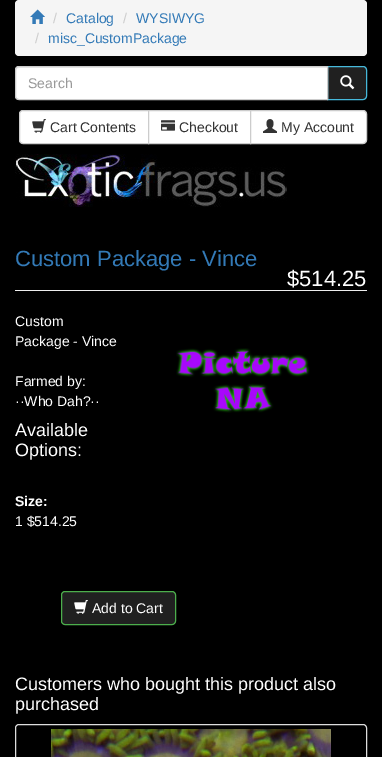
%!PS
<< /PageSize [382 757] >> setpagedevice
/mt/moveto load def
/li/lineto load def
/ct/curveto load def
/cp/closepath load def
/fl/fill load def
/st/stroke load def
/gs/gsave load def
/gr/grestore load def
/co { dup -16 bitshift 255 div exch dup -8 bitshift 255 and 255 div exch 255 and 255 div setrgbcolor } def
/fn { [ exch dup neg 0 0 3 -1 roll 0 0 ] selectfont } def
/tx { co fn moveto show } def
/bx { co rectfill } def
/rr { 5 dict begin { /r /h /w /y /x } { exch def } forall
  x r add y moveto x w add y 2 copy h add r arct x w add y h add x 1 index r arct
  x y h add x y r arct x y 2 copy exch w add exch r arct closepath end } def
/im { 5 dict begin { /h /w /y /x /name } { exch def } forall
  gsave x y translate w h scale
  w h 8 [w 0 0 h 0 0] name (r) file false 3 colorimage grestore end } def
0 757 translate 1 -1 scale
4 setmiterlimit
0 0 382 757 16#000000 bx
16#F5F5F5 co
15 0 352 56 4 rr fl
(media/1.raw) 30 9 15 15 im
16#202020 co
327.5 66.5 mt 363 66.5 li 365 66.5 366.5 68 366.5 70 ct 366.5 96 li 366.5 98 365 99.5 363 99.5 ct 327.5 99.5 li cp gs fl gr
16#46B8DA co
st
16#FFFFFF co
19 66 mt 328 66 li 328 100 li 19 100 li 17 100 15 98 15 96 ct 15 70 li 15 68 17 66 19 66 ct cp fl
16#ECECEC co
19 68 mt 327 68 li 327 67 li 19 67 li 17 67 16 69 16 71 ct 16 69 17 68 19 68 ct cp fl
16#CCCCCC co
19 66.5 mt 327.5 66.5 li 327.5 99.5 li 19 99.5 li 17 99.5 15.5 98 15.5 96 ct 15.5 70 li 15.5 68 17 66.5 19 66.5 ct cp st
(media/2.raw) 340 75 15 15 im
16#FFFFFF co
23 110.5 mt 148.5 110.5 li 148.5 143.5 li 23 143.5 li 21 143.5 19.5 142 19.5 140 ct 19.5 114 li 19.5 112 21 110.5 23 110.5 ct cp gs fl gr
16#CCCCCC co
st
(media/3.raw) 32 119 14 14 im
16#FFFFFF co
148.5 110.5 mt 250.5 110.5 li 250.5 143.5 li 148.5 143.5 li cp gs fl gr
16#CCCCCC co
st
(media/4.raw) 161 120 14 11 im
16#FFFFFF co
250.5 110.5 mt 363 110.5 li 365 110.5 366.5 112 366.5 114 ct 366.5 140 li 366.5 142 365 143.5 363 143.5 ct 250.5 143.5 li cp gs fl gr
16#CCCCCC co
st
(media/5.raw) 263 119 14 14 im
(media/6.raw) 15 154 272 53 im
15 290 352 1 16#EEEEEE bx
(media/7.raw) 176 348 134 65 im
16#202020 co
61.5 591.5 114 33 3.5 rr gs fl gr
16#4CAE4C co
st
(media/8.raw) 74 600 14 14 im
16#DDDDDD co
15.5 724.5 351 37 3.5 rr st
(media/9.raw) 51 729 280 28 im
(/) 53 23 /LiberationSans-Regular 14 16#CCCCCC tx
(Catalog) 66 23 /LiberationSans-Regular 14 16#337AB7 tx
(/) 123 23 /LiberationSans-Regular 14 16#CCCCCC tx
(WYSIWYG) 136 23 /LiberationSans-Regular 14 16#337AB7 tx
(/) 35 43 /LiberationSans-Regular 14 16#CCCCCC tx
(misc_CustomPackage) 48 43 /LiberationSans-Regular 14 16#337AB7 tx
(Search) 28 88 /LiberationSans-Regular 14 16#999999 tx
(Cart Contents) 50 132 /LiberationSans-Regular 14 16#333333 tx
(Checkout) 179 132 /LiberationSans-Regular 14 16#333333 tx
(My Account) 281 132 /LiberationSans-Regular 14 16#333333 tx
(Custom Package - Vince) 15 266 /LiberationSans-Regular 22 16#337AB7 tx
($514.25) 287 286 /LiberationSans-Regular 22 16#FFFFFF tx
(Custom) 15 326 /LiberationSans-Regular 14 16#FFFFFF tx
(Package - Vince) 15 346 /LiberationSans-Regular 14 16#FFFFFF tx
(Farmed by:) 15 386 /LiberationSans-Regular 14 16#FFFFFF tx
(··Who Dah?··) 15 406 /LiberationSans-Regular 14 16#FFFFFF tx
(Available) 15 436 /LiberationSans-Regular 18 16#FFFFFF tx
(Options:) 15 456 /LiberationSans-Regular 18 16#FFFFFF tx
(Size:) 15 506 /LiberationSans-Bold 14 16#FFFFFF tx
(1 $514.25) 15 526 /LiberationSans-Regular 14 16#FFFFFF tx
(Add to Cart) 92 613 /LiberationSans-Regular 14 16#FFFFFF tx
(Customers who bought this product also) 15 690 /LiberationSans-Regular 18 16#FFFFFF tx
(purchased) 15 710 /LiberationSans-Regular 18 16#FFFFFF tx
showpage
